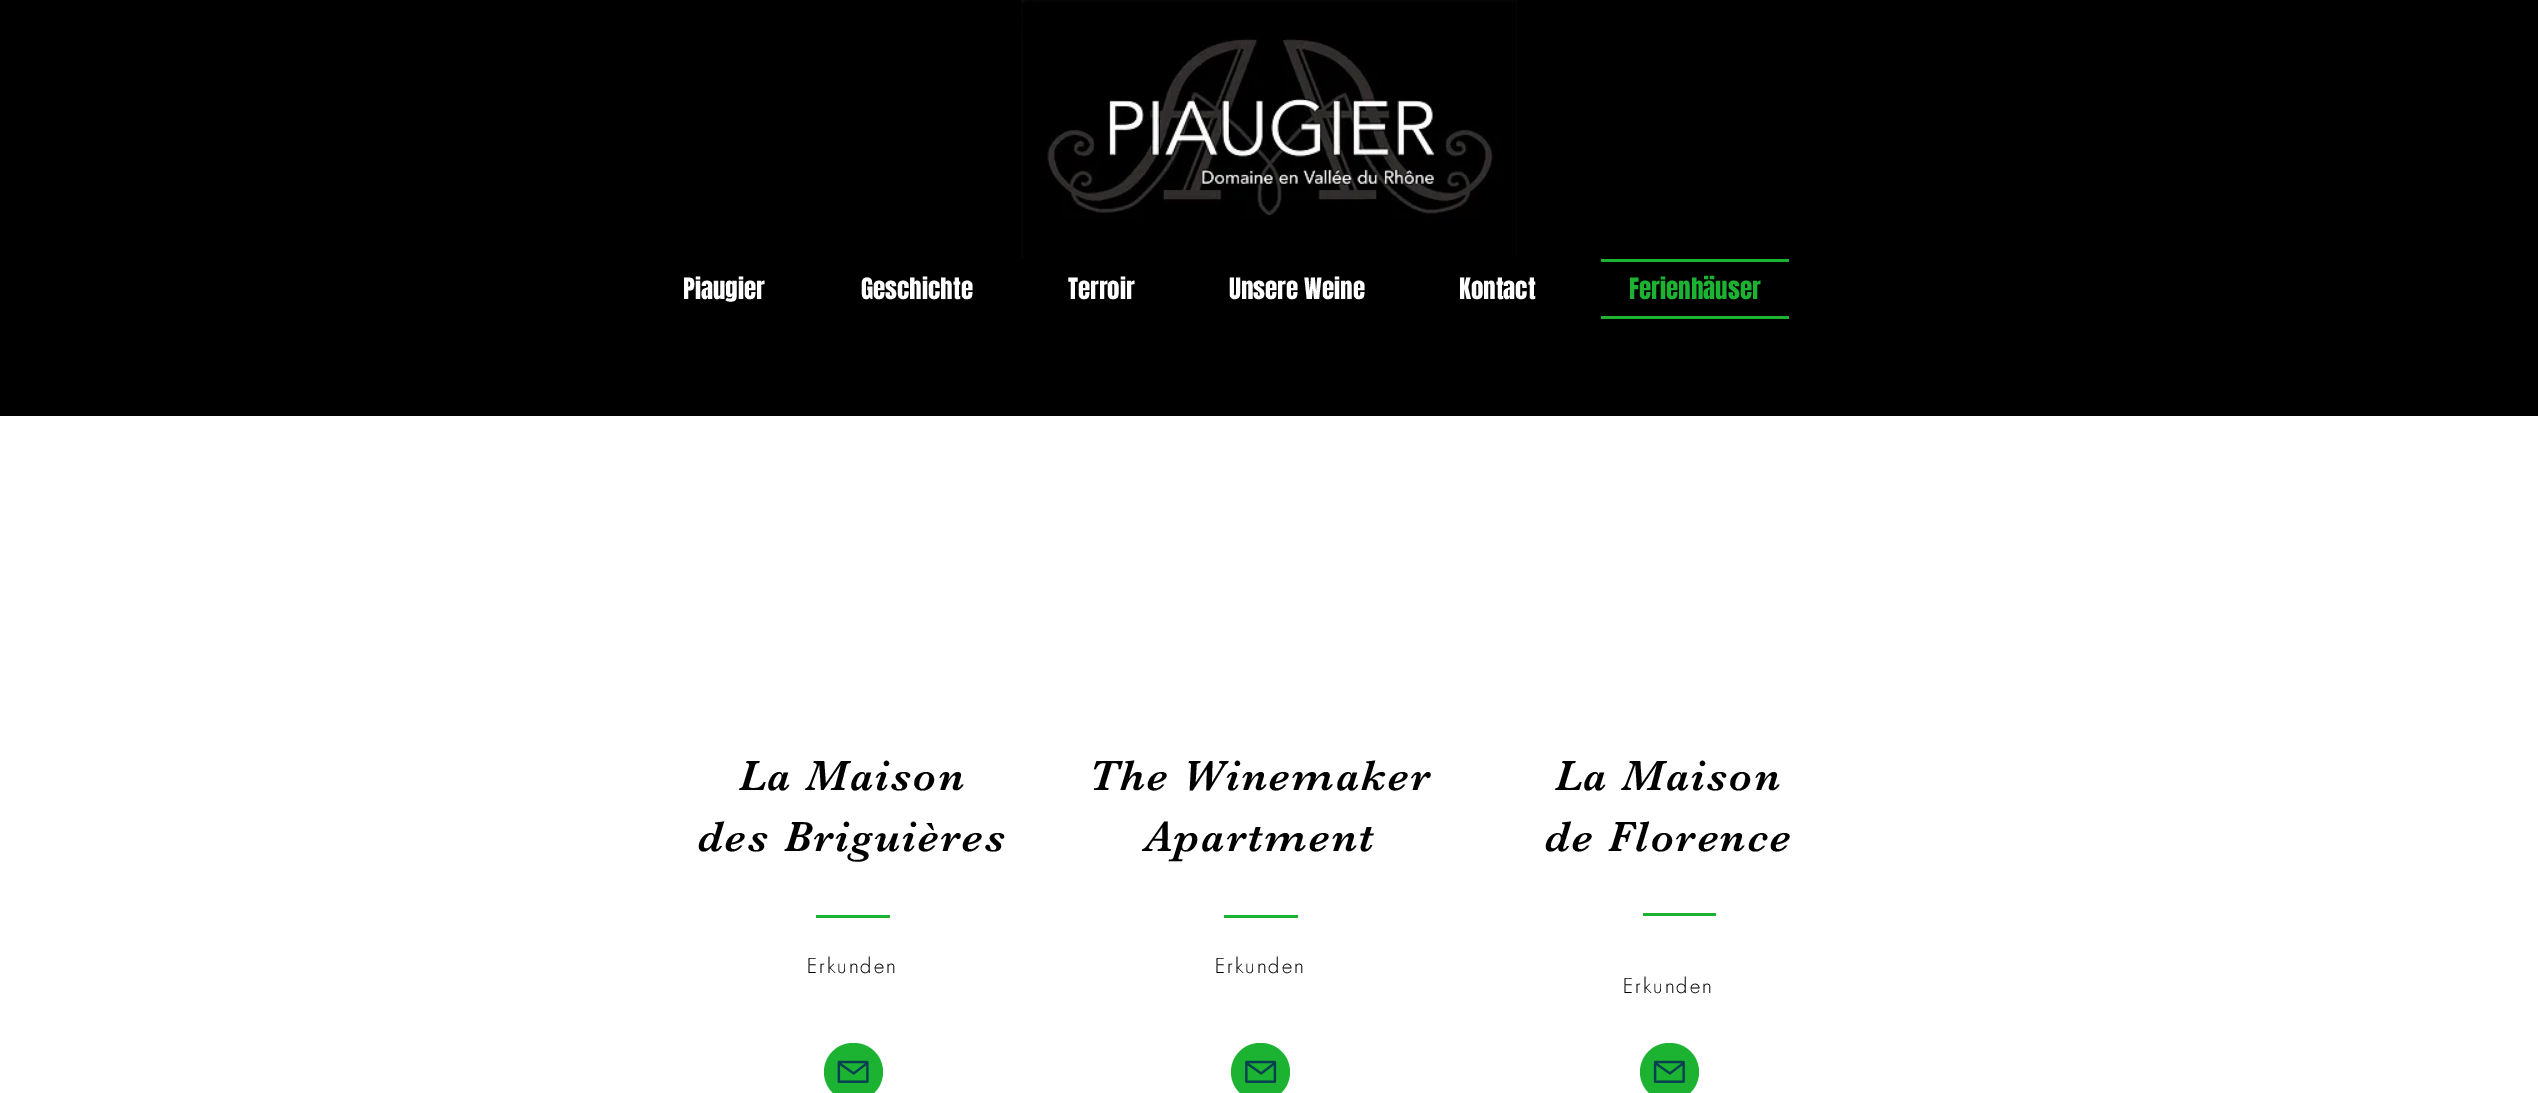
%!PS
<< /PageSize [2538 1093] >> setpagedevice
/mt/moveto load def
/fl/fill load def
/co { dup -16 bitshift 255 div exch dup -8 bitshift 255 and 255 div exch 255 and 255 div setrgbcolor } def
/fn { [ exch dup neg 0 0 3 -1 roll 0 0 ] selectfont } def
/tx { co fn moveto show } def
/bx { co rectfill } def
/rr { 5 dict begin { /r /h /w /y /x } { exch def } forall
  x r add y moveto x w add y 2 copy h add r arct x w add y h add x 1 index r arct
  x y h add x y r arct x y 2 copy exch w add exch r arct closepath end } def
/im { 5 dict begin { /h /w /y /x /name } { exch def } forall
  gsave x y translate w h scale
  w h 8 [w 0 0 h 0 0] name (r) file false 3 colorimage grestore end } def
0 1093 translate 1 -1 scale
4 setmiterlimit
0 0 2538 1093 16#FFFFFF bx
0 0 2538 416 16#000000 bx
(media/1.raw) 1021 0 496 258 im
1601 259 188 3 16#1CB333 bx
1601 316 188 3 16#1CB333 bx
816 915 74 3 16#1CB332 bx
1224 915 74 3 16#1CB332 bx
1643 913 73 3 16#1CB332 bx
824 1043 59 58 29 rr fl
(media/2.raw) 837 1060 32 23 im
1640 1043 59 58 29 rr fl
(media/3.raw) 1653 1060 32 23 im
1231 1043 59 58 29 rr fl
(media/4.raw) 1245 1060 32 23 im
(Piaugier) 683 299 /Anton-Regular 25 16#FFFFFF tx
(Geschichte) 861 299 /Anton-Regular 25 16#FFFFFF tx
(Terroir) 1068 299 /Anton-Regular 25 16#FFFFFF tx
(Unsere Weine) 1229 299 /Anton-Regular 25 16#FFFFFF tx
(Kontact) 1459 299 /Anton-Regular 25 16#FFFFFF tx
(Ferienhäuser) 1629 299 /Anton-Regular 25 16#1CB332 tx
/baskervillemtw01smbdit-Regular 43.75 fn
16#000000 co
739 790 mt 2.25 0 (La Maison) ashow
698 851 mt 2.25 0 (des Briguières) ashow
/futura-Light 20 fn
807 973 mt 2 0 (Erkunden) ashow
/baskervillemtw01smbdit-Regular 43.75 fn
1089 790 mt 2.25 0 (The Winemaker) ashow
1145 851 mt 2.25 0 (Apartment) ashow
/futura-Light 20 fn
1215 973 mt 2 0 (Erkunden) ashow
/baskervillemtw01smbdit-Regular 43.75 fn
1555 790 mt 2.25 0 (La Maison) ashow
1545 851 mt 2.25 0 (de Florence) ashow
/futura-Light 20 fn
1623 993 mt 2 0 (Erkunden) ashow
showpage
